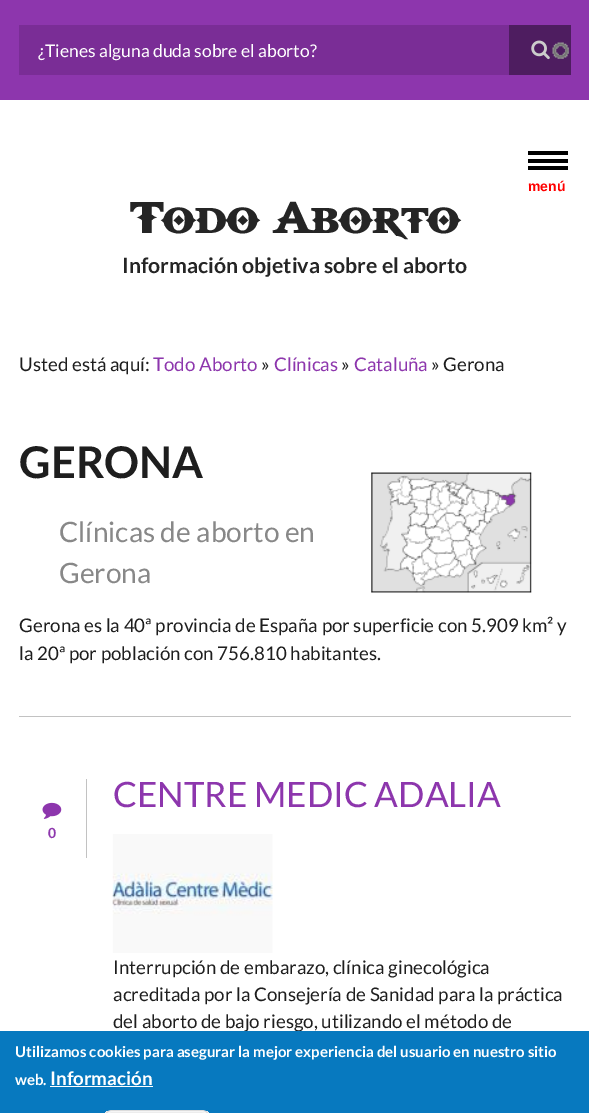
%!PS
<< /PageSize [589 1113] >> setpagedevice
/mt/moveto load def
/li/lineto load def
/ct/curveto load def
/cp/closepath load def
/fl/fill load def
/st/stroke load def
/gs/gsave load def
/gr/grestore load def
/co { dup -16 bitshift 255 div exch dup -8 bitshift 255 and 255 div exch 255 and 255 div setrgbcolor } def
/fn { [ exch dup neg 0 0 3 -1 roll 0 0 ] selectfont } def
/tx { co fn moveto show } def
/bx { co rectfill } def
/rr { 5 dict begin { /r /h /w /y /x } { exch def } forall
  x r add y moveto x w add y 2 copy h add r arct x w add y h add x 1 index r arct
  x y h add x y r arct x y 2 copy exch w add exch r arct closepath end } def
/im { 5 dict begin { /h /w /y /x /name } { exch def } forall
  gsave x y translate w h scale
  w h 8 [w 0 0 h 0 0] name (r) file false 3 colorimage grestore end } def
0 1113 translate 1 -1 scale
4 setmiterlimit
0 0 589 1113 16#FFFFFF bx
0 0 589 100 16#8D36AD bx
19 25 490 50 16#7A2D96 bx
509 25 62 50 16#4E1D60 bx
(media/1.raw) 552 42 17 17 im
(media/2.raw) 531 40 19 20 im
528 151 40 4 16#000000 bx
528 159 40 4 16#000000 bx
528 166 40 4 16#000000 bx
(media/3.raw) 371 472 161 121 im
19 716 552 1 16#C2C2C2 bx
86 779 1 79 16#C2C2C2 bx
(media/4.raw) 42 802 20 17 im
(media/5.raw) 112 834 161 119 im
(¿Tienes alguna duda sobre el aborto?) 38 57 /Lato-Regular 17.5 16#FFFFFF tx
(menú) 528 191 /LiberationSans-Bold 14 16#FF0000 tx
(Todo Aborto) 130 233 /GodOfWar-Bold 47.5 16#252525 tx
(Información objetiva sobre el aborto) 122 273 /Lato-Bold 21.25 16#252525 tx
(Usted está aquí:) 19 371 /Lato-Regular 18.75 16#1E1E1E tx
(Todo Aborto) 153 371 /Lato-Regular 18.75 16#8D36AD tx
(») 261 371 /Lato-Regular 18.75 16#1E1E1E tx
(Clínicas) 274 371 /Lato-Regular 18.75 16#8D36AD tx
(») 341 371 /Lato-Regular 18.75 16#1E1E1E tx
(Cataluña) 354 371 /Lato-Regular 18.75 16#8D36AD tx
(» Gerona) 431 371 /Lato-Regular 18.75 16#1E1E1E tx
(GERONA) 19 478 /Lato-Bold 43.75 16#1E1E1E tx
(Clínicas de aborto en) 59 542 /Lato-Regular 28.1 16#888888 tx
(Gerona) 59 583 /Lato-Regular 28.1 16#888888 tx
(Gerona es la 40ª provincia de España por superficie con 5.909 km² y) 19 632 /Lato-Regular 18.75 16#1E1E1E tx
(la 20ª por población con 756.810 habitantes.) 19 660 /Lato-Regular 18.75 16#1E1E1E tx
(0) 48 838 /Lato-Bold 14 16#8D36AD tx
(CENTRE MEDIC ADALIA) 113 807 /Lato-Regular 35 16#8D36AD tx
(Interrupción de embarazo, clínica ginecológica) 113 974 /Lato-Regular 18.75 16#1E1E1E tx
(acreditada por la Consejería de Sanidad para la práctica) 113 1001 /Lato-Regular 18.75 16#1E1E1E tx
(del aborto de bajo riesgo, utilizando el método de) 113 1028 /Lato-Regular 18.75 16#1E1E1E tx
0 1031 589 82 16#0779BF bx
(Utilizamos cookies para asegurar la mejor experiencia del usuario en nuestro sitio) 15 1057 /Lato-Bold 15 16#FFFFFF tx
(web.) 15 1085 /Lato-Bold 15 16#FFFFFF tx
(Información) 50 1085 /Lato-Bold 18.75 16#FFFFFF tx
50 1086 103 1 16#FFFFFF bx
gs
104 1110 106 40 8 rr clip newpath
gs 104 1111 mt 210 1111 li 210 1113 li 104 1113 li cp clip newpath
<< /ShadingType 2 /ColorSpace /DeviceRGB /Coords [157 1111 157 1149] /Extend [true true] /Function << /FunctionType 3 /Domain [0 1] /Functions [<< /FunctionType 2 /Domain [0 1] /C0 [.929 .929 .929] /C1 [.929 .929 .929] /N 1 >> << /FunctionType 2 /Domain [0 1] /C0 [.929 .929 .929] /C1 [.875 .875 .875] /N 1 >>] /Bounds [.05] /Encode [0 1 0 1] >> >> shfill gr
gr
111 1112 mt 202 1112 li 206 1112 209 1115 209 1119 ct 209 1107 197 1111 188 1111 ct 126 1111 li 117 1111 105 1107 105 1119 ct 105 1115 108 1112 111 1112 ct cp fl
16#DCDCDC co
104.5 1110.5 105 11 7.5 rr st
showpage
